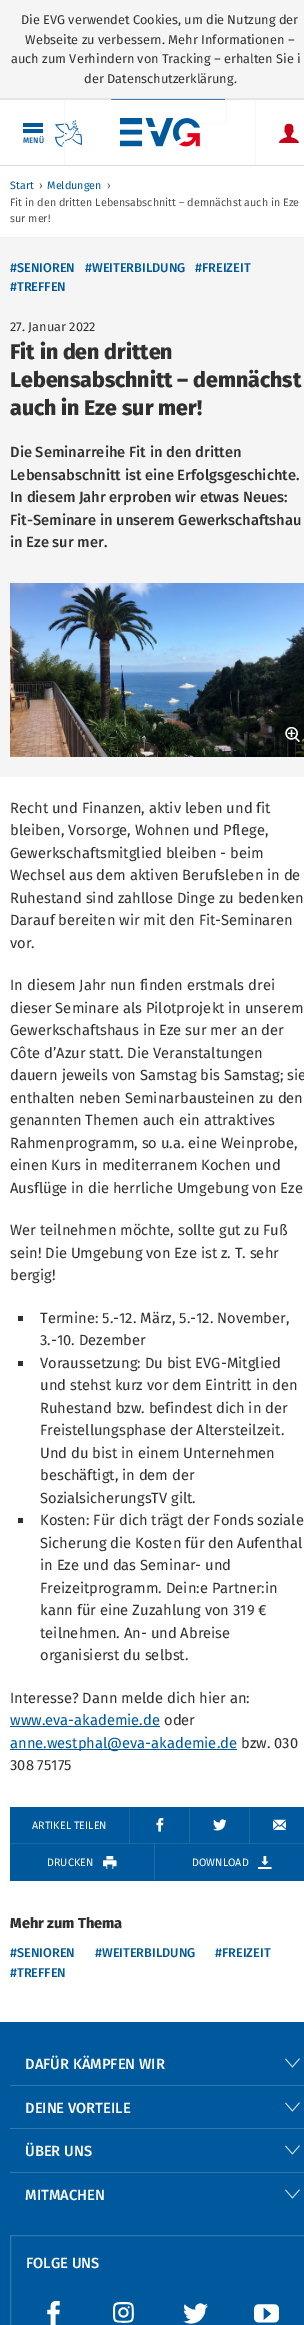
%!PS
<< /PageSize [304 2325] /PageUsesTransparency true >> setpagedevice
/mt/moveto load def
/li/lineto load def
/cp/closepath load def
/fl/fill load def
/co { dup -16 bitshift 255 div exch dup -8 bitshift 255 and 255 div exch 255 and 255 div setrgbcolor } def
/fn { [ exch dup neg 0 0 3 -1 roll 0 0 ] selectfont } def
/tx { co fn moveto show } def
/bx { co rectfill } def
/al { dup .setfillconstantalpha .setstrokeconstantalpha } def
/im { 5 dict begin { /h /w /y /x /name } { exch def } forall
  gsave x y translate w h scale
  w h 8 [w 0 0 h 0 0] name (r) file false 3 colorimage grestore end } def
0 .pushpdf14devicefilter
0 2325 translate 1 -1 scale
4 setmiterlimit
0 0 304 2325 16#FFFFFF bx
0 0 304 98 16#F5F5F5 bx
0 98 304 2 16#E5E5E5 bx
111 99 114 1 16#00599D bx
16#E5E5E5 co
110.5 98.5 115 24 rectstroke
0 165 304 1 16#D9D9D9 bx
110 100 116 23 16#FFFFFF bx
(media/2.raw) 55 120 27 27 im
64 100 1 65 16#F5F5F5 bx
23 123 20 4 16#00599D bx
23 129 20 4 16#00599D bx
255 100 1 65 16#F5F5F5 bx
(media/1.raw) 279 123 20 20 im
(media/3.raw) 120 118 80 29 im
0 237 304 1 16#F0F0F1 bx
0 238 304 539 16#F5F5F5 bx
(media/4.raw) 10 583 294 174 im
(media/5.raw) 285 727 15 15 im
18 1316 5 5 16#313131 bx
18 1361 5 5 16#313131 bx
18 1518 5 5 16#313131 bx
10 1726 150 1 16#00599D bx
10 1749 227 1 16#00599D bx
10 1807 294 74 16#00599D bx
129 1807 1 36 16#1A6AA7 bx
189 1807 1 36 16#1A6AA7 bx
(media/6.raw) 156 1818 8 14 im
249 1807 1 36 16#1A6AA7 bx
(media/7.raw) 213 1819 13 12 im
(media/8.raw) 273 1819 13 11 im
10 1843 mt 155 1843 li 154 1844 li 10 1844 li cp fl
0.1 al
16#FFFFFF co
155 1843 mt 155 1881 li 154 1881 li 154 1844 li cp fl
1 al
(media/9.raw) 103 1856 14 13 im
16#1A6AA7 co
155 1843 mt 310 1843 li 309 1844 li 155 1844 li cp fl
(media/10.raw) 258 1856 14 13 im
0 2022 304 303 16#00599D bx
10 2085 294 1 16#3178AF bx
(media/11.raw) 285 2058 15 10 im
10 2128 294 1 16#3178AF bx
(media/11.raw) 285 2102 15 10 im
10 2172 294 1 16#3178AF bx
(media/11.raw) 285 2145 15 10 im
(media/11.raw) 285 2189 15 10 im
10.5 2235.5 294 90 rectstroke
(media/12.raw) 47 2301 13 24 im
(media/13.raw) 113 2302 21 21 im
(media/14.raw) 183 2303 25 21 im
(media/15.raw) 254 2304 25 19 im
(Die EVG verwendet Cookies, um die Nutzung der) 21 24 /FiraSans-Regular 13 16#313131 tx
(Webseite zu verbessern. Mehr Informationen –) 25 44 /FiraSans-Regular 13 16#313131 tx
(auch zum Verhindern von Tracking – erhalten Sie i) 11 63 /FiraSans-Regular 13 16#313131 tx
(der Datenschutzerklärung.) 84 83 /FiraSans-Regular 13 16#313131 tx
(MENÜ) 23 143 /FiraSans-Medium 8 16#00599D tx
(Start) 10 189 /FiraSans-Regular 11 16#00599D tx
(›) 39 189 /FiraSans-Regular 11 16#535353 tx
(Meldungen) 47 189 /FiraSans-Regular 11 16#00599D tx
(›) 107 189 /FiraSans-Regular 11 16#535353 tx
(Fit in den dritten Lebensabschnitt – demnächst auch in Eze) 10 206 /FiraSans-Regular 11 16#535353 tx
(sur mer!) 10 222 /FiraSans-Regular 11 16#535353 tx
(#SENIOREN) 10 272 /FiraSans-Medium 13 16#00599D tx
(#WEITERBILDUNG) 85 272 /FiraSans-Medium 13 16#00599D tx
(#FREIZEIT) 195 272 /FiraSans-Medium 13 16#00599D tx
(#TREFFEN) 10 291 /FiraSans-Medium 13 16#00599D tx
(27. Januar 2022) 10 331 /FiraSans-Regular 13 16#313131 tx
(Fit in den dritten) 10 359 /FiraSans-ExtraBold 22 16#313131 tx
(Lebensabschnitt – demnächst) 10 387 /FiraSans-ExtraBold 22 16#313131 tx
(auch in Eze sur mer!) 10 415 /FiraSans-ExtraBold 22 16#313131 tx
(Die Seminarreihe Fit in den dritten) 10 457 /FiraSans-Medium 15 16#313131 tx
(Lebensabschnitt ist eine Erfolgsgeschichte.) 10 480 /FiraSans-Medium 15 16#313131 tx
(In diesem Jahr erproben wir etwas Neues:) 10 502 /FiraSans-Medium 15 16#313131 tx
(Fit-Seminare in unserem Gewerkschaftshau) 10 525 /FiraSans-Medium 15 16#313131 tx
(in Eze sur mer.) 10 547 /FiraSans-Medium 15 16#313131 tx
(Recht und Finanzen, aktiv leben und fit) 10 813 /FiraSans-Regular 15 16#313131 tx
(bleiben, Vorsorge, Wohnen und Pflege,) 10 835 /FiraSans-Regular 15 16#313131 tx
(Gewerkschaftsmitglied bleiben - beim) 10 858 /FiraSans-Regular 15 16#313131 tx
(Wechsel aus dem aktiven Berufsleben in de) 10 880 /FiraSans-Regular 15 16#313131 tx
(Ruhestand sind zahllose Dinge zu bedenken) 10 903 /FiraSans-Regular 15 16#313131 tx
(Darauf bereiten wir mit den Fit-Seminaren) 10 925 /FiraSans-Regular 15 16#313131 tx
(vor.) 10 948 /FiraSans-Regular 15 16#313131 tx
(In diesem Jahr nun finden erstmals drei) 10 990 /FiraSans-Regular 15 16#313131 tx
(dieser Seminare als Pilotprojekt in unserem) 10 1013 /FiraSans-Regular 15 16#313131 tx
(Gewerkschaftshaus in Eze sur mer an der) 10 1035 /FiraSans-Regular 15 16#313131 tx
(Côte d’Azur statt. Die Veranstaltungen) 10 1058 /FiraSans-Regular 15 16#313131 tx
(dauern jeweils von Samstag bis Samstag; sie) 10 1080 /FiraSans-Regular 15 16#313131 tx
(enthalten neben Seminarbausteinen zu den) 10 1103 /FiraSans-Regular 15 16#313131 tx
(genannten Themen auch ein attraktives) 10 1125 /FiraSans-Regular 15 16#313131 tx
(Rahmenprogramm, so u.a. eine Weinprobe,) 10 1148 /FiraSans-Regular 15 16#313131 tx
(einen Kurs in mediterranem Kochen und) 10 1170 /FiraSans-Regular 15 16#313131 tx
(Ausflüge in die herrliche Umgebung von Eze) 10 1193 /FiraSans-Regular 15 16#313131 tx
(Wer teilnehmen möchte, sollte gut zu Fuß) 10 1235 /FiraSans-Regular 15 16#313131 tx
(sein! Die Umgebung von Eze ist z. T. sehr) 10 1258 /FiraSans-Regular 15 16#313131 tx
(bergig!) 10 1280 /FiraSans-Regular 15 16#313131 tx
(Termine: 5.-12. März, 5.-12. November,) 40 1323 /FiraSans-Regular 15 16#313131 tx
(3.-10. Dezember) 40 1345 /FiraSans-Regular 15 16#313131 tx
(Voraussetzung: Du bist EVG-Mitglied) 40 1368 /FiraSans-Regular 15 16#313131 tx
(und stehst kurz vor dem Eintritt in den) 40 1390 /FiraSans-Regular 15 16#313131 tx
(Ruhestand bzw. befindest dich in der) 40 1413 /FiraSans-Regular 15 16#313131 tx
(Freistellungsphase der Altersteilzeit.) 40 1435 /FiraSans-Regular 15 16#313131 tx
(Und du bist in einem Unternehmen) 40 1458 /FiraSans-Regular 15 16#313131 tx
(beschäftigt, in dem der) 40 1480 /FiraSans-Regular 15 16#313131 tx
(SozialsicherungsTV gilt.) 40 1503 /FiraSans-Regular 15 16#313131 tx
(Kosten: Für dich trägt der Fonds soziale) 40 1525 /FiraSans-Regular 15 16#313131 tx
(Sicherung die Kosten für den Aufenthal) 40 1548 /FiraSans-Regular 15 16#313131 tx
(in Eze und das Seminar- und) 40 1570 /FiraSans-Regular 15 16#313131 tx
(Freizeitprogramm. Dein:e Partner:in) 40 1593 /FiraSans-Regular 15 16#313131 tx
(kann für eine Zuzahlung von 319 €) 40 1615 /FiraSans-Regular 15 16#313131 tx
(teilnehmen. An- und Abreise) 40 1638 /FiraSans-Regular 15 16#313131 tx
(organisierst du selbst.) 40 1660 /FiraSans-Regular 15 16#313131 tx
(Interesse? Dann melde dich hier an:) 10 1703 /FiraSans-Regular 15 16#313131 tx
(www.eva-akademie.de) 10 1725 /FiraSans-Regular 15 16#00599D tx
(oder) 164 1725 /FiraSans-Regular 15 16#313131 tx
(anne.westphal@eva-akademie.de) 10 1748 /FiraSans-Regular 15 16#00599D tx
(bzw. 030) 241 1748 /FiraSans-Regular 15 16#313131 tx
(308 75175) 10 1770 /FiraSans-Regular 15 16#313131 tx
(ARTIKEL TEILEN) 32 1829 /FiraSans-Regular 11 16#FFFFFF tx
(DRUCKEN) 47 1866 /FiraSans-Regular 11 16#FFFFFF tx
(DOWNLOAD) 192 1866 /FiraSans-Regular 11 16#FFFFFF tx
(Mehr zum Thema) 10 1928 /FiraSans-ExtraBold 15 16#313131 tx
(#SENIOREN) 10 1957 /FiraSans-Medium 13 16#00599D tx
(#WEITERBILDUNG) 95 1957 /FiraSans-Medium 13 16#00599D tx
(#FREIZEIT) 215 1957 /FiraSans-Medium 13 16#00599D tx
(#TREFFEN) 10 1977 /FiraSans-Medium 13 16#00599D tx
(DAFÜR KÄMPFEN WIR) 25 2069 /FiraSans-Medium 15 16#FFFFFF tx
(DEINE VORTEILE) 25 2113 /FiraSans-Medium 15 16#FFFFFF tx
(ÜBER UNS) 25 2156 /FiraSans-Medium 15 16#FFFFFF tx
(MITMACHEN) 25 2200 /FiraSans-Medium 15 16#FFFFFF tx
(FOLGE UNS) 26 2268 /FiraSans-Medium 15 16#FFFFFF tx
.poppdf14devicefilter showpage
